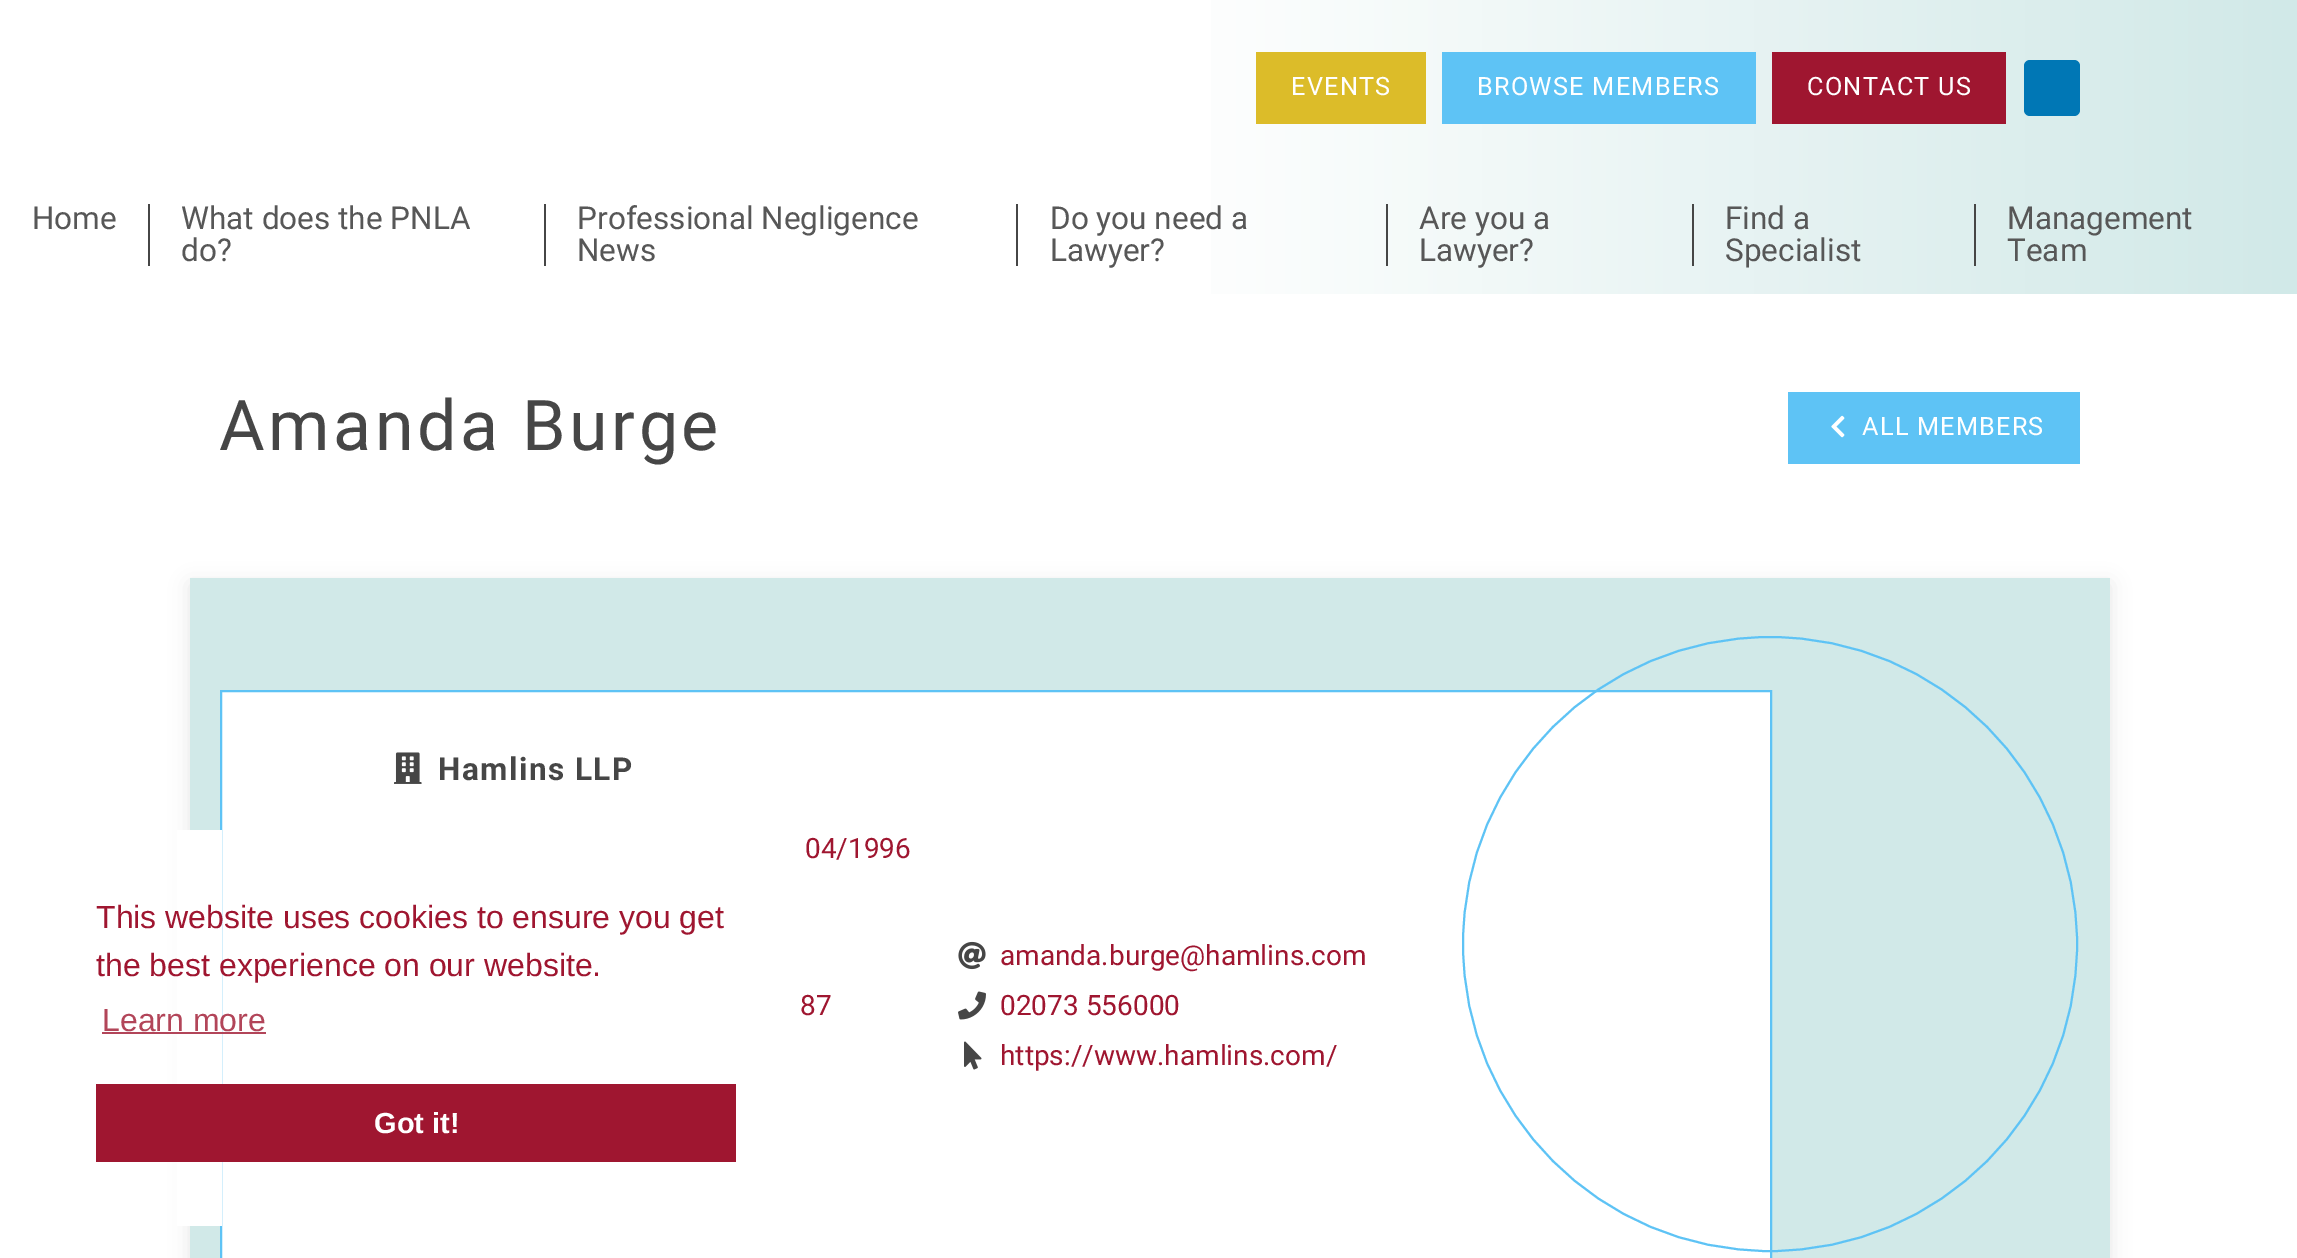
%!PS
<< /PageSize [2297 1258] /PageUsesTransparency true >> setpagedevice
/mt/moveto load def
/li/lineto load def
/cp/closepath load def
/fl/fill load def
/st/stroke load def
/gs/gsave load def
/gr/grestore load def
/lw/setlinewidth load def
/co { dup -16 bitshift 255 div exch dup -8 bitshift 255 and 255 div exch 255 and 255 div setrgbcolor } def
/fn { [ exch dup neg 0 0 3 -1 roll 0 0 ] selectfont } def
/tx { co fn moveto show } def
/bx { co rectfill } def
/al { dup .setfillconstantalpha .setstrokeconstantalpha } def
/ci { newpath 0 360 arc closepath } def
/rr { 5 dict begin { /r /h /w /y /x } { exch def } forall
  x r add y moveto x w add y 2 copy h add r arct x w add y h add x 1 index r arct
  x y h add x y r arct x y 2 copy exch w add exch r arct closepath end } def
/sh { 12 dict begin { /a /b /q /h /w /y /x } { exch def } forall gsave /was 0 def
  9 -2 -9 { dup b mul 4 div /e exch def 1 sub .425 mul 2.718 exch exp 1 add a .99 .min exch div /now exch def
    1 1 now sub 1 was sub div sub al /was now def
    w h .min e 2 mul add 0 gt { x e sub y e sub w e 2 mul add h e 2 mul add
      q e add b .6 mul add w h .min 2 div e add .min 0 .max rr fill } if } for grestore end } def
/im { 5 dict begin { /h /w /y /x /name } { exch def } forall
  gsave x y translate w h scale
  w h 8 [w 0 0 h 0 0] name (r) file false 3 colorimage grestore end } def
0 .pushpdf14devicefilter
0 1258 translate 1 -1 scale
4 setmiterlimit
0 0 2297 1258 16#FFFFFF bx
gs 1211 0 mt 2297 0 li 2297 294 li 1211 294 li cp clip newpath
<< /ShadingType 2 /ColorSpace /DeviceRGB /Coords [0 147 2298 147] /Extend [true true] /Function << /FunctionType 3 /Domain [0 1] /Functions [<< /FunctionType 2 /Domain [0 1] /C0 [1 1 1] /C1 [1 1 1] /N 1 >> << /FunctionType 2 /Domain [0 1] /C0 [1 1 1] /C1 [.82 .914 .91] /N 1 >>] /Bounds [.5] /Encode [0 1 0 1] >> >> shfill gr
1256 52 170 72 16#DCBC29 bx
1442 52 314 72 16#5EC3F5 bx
1772 52 234 72 16#9F1630 bx
16#0077B5 co
2024 60 56 56 6 rr fl
148 204 2 62 16#464646 bx
544 204 2 62 16#464646 bx
1016 204 2 62 16#464646 bx
1386 204 2 62 16#464646 bx
1692 204 2 62 16#464646 bx
1974 204 2 62 16#464646 bx
1788 392 292 72 16#5EC3F5 bx
(media/1.raw) 1831 415 14 23 im
16#000000 co
190 584 1920 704 0 10 .1 sh
190 578 1920 680 16#D1E9E8 bx
16#FFFFFF co
221 691 mt 1771 691 li 1771 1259 li 221 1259 li cp gs fl gr
16#5EC3F5 co
2 lw
st
(media/2.raw) 394 752 28 32 im
1770 944 307 ci st
(media/3.raw) 958 941 28 29 im
(media/4.raw) 958 991 28 29 im
(media/5.raw) 964 1041 18 29 im
177 830 45 396 16#FFFFFF bx
102 1032 164 2 16#B24559 bx
96 1084 640 78 16#9F1630 bx
/Roboto-Regular 25.25 fn
16#FFFFFF co
1291 95 mt 1.25 0 (EVENTS) ashow
1477 95 mt 1.25 0 (BROWSE MEMBERS) ashow
1807 95 mt 1.25 0 (CONTACT US) ashow
(Home) 32 229 /Roboto-Regular 31.5 16#575757 tx
(What does the PNLA) 181 229 /Roboto-Regular 31.5 16#575757 tx
(do?) 181 261 /Roboto-Regular 31.5 16#575757 tx
(Professional Negligence) 577 229 /Roboto-Regular 31.5 16#575757 tx
(News) 577 261 /Roboto-Regular 31.5 16#575757 tx
(Do you need a) 1050 229 /Roboto-Regular 31.5 16#575757 tx
(Lawyer?) 1050 261 /Roboto-Regular 31.5 16#575757 tx
(Are you a) 1419 229 /Roboto-Regular 31.5 16#575757 tx
(Lawyer?) 1419 261 /Roboto-Regular 31.5 16#575757 tx
(Find a) 1725 229 /Roboto-Regular 31.5 16#575757 tx
(Specialist) 1725 261 /Roboto-Regular 31.5 16#575757 tx
(Management) 2007 229 /Roboto-Regular 31.5 16#575757 tx
(Team) 2007 261 /Roboto-Regular 31.5 16#575757 tx
/Roboto-Regular 70 fn
16#464646 co
219 450 mt 3.5 0 (Amanda Burge) ashow
/Roboto-Regular 25.25 fn
16#FFFFFF co
1862 435 mt 1.25 0 (ALL MEMBERS) ashow
/Roboto-Bold 31.5 fn
16#464646 co
438 780 mt 1.5 0 (Hamlins LLP) ashow
(04/1996) 805 858 /Roboto-Regular 28 16#9F1630 tx
(87) 800 1015 /Roboto-Regular 28 16#9F1630 tx
(amanda.burge@hamlins.com) 1000 965 /Roboto-Regular 28 16#9F1630 tx
(02073 556000) 1000 1015 /Roboto-Regular 28 16#9F1630 tx
(https://www.hamlins.com/) 1000 1065 /Roboto-Regular 28 16#9F1630 tx
(This website uses cookies to ensure you get) 96 928 /LiberationSans-Regular 32 16#9F1630 tx
(the best experience on our website.) 96 976 /LiberationSans-Regular 32 16#9F1630 tx
(Learn more) 102 1031 /LiberationSans-Regular 32 16#B24559 tx
(Got it!) 374 1133 /LiberationSans-Bold 29 16#FFFFFF tx
.poppdf14devicefilter showpage
